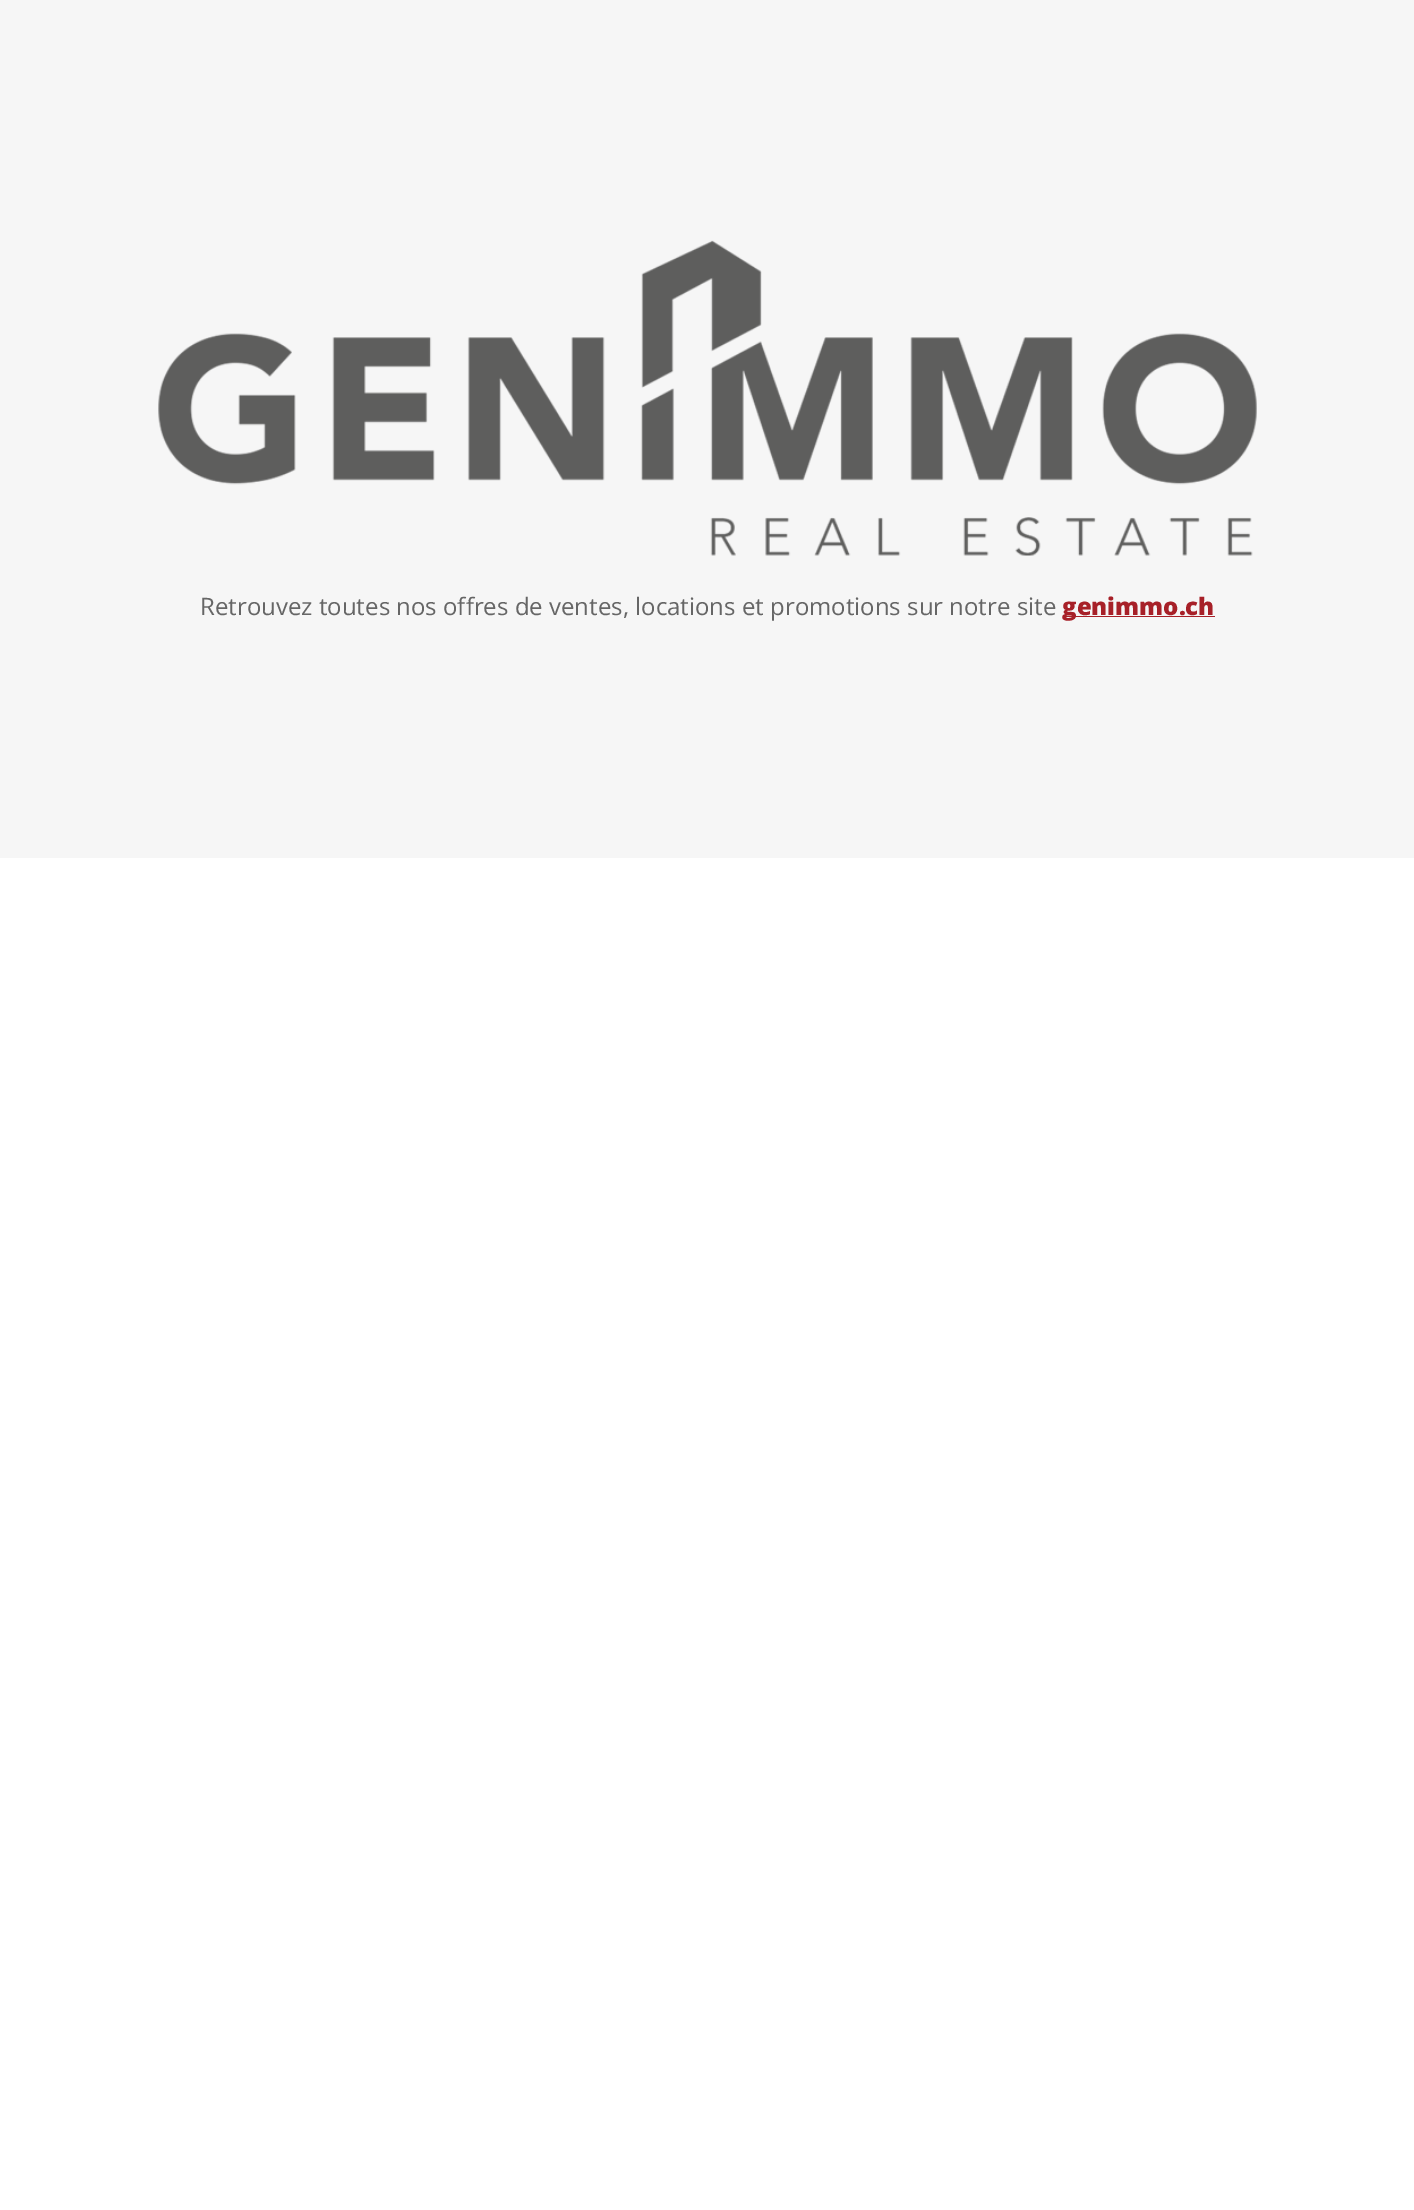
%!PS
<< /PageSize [1414 2210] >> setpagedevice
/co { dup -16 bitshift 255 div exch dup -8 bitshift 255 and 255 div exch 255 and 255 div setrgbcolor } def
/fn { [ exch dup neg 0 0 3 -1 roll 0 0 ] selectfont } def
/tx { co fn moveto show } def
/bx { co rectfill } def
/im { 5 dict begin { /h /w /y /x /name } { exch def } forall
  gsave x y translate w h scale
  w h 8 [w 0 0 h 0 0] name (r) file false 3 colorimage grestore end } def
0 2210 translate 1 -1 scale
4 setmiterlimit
0 0 1414 2210 16#FFFFFF bx
0 0 1414 858 16#F6F6F6 bx
(media/1.raw) 158 240 1099 316 im
1063 616 152 1 16#A72028 bx
(Retrouvez toutes nos offres de ventes, locations et promotions sur notre site) 200 615 /OpenSans-Regular 24 16#666666 tx
(genimmo.ch) 1062 615 /OpenSans-ExtraBold 24 16#A72028 tx
showpage
